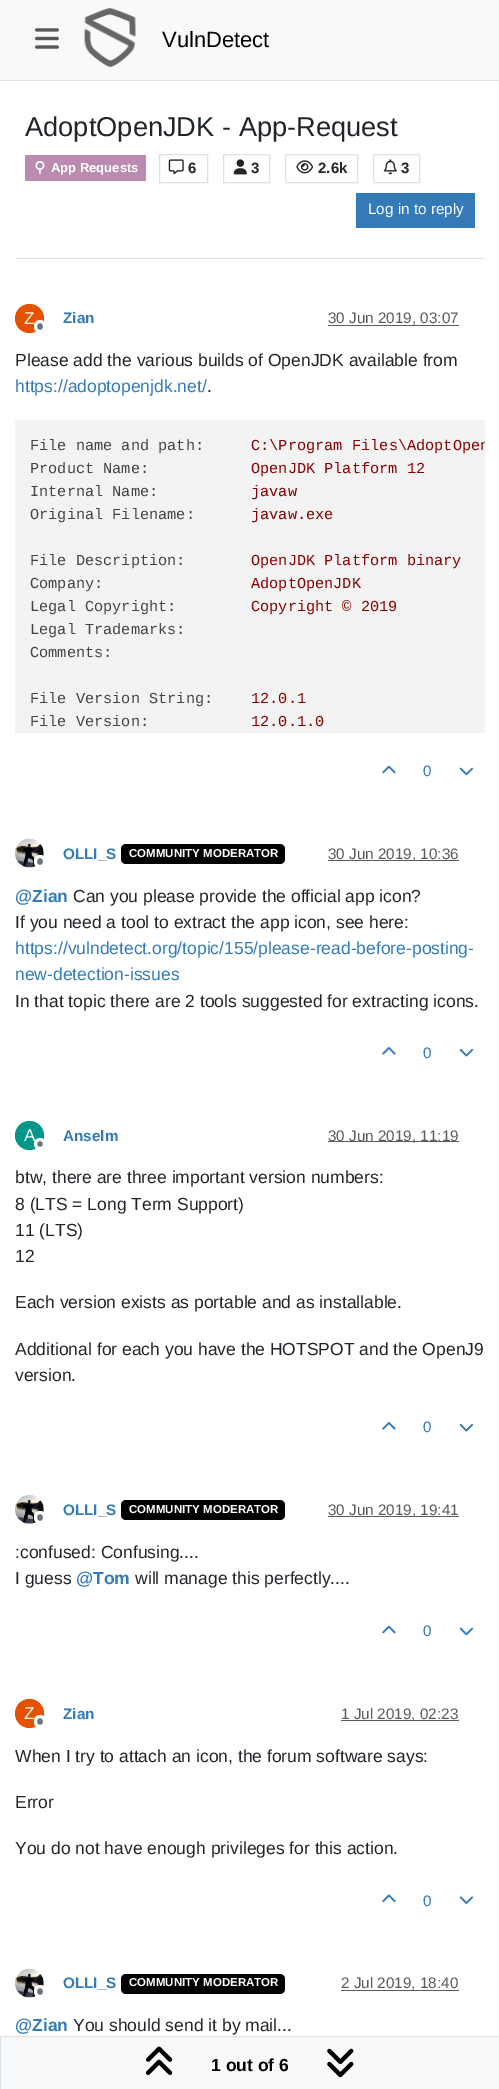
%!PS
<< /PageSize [499 2089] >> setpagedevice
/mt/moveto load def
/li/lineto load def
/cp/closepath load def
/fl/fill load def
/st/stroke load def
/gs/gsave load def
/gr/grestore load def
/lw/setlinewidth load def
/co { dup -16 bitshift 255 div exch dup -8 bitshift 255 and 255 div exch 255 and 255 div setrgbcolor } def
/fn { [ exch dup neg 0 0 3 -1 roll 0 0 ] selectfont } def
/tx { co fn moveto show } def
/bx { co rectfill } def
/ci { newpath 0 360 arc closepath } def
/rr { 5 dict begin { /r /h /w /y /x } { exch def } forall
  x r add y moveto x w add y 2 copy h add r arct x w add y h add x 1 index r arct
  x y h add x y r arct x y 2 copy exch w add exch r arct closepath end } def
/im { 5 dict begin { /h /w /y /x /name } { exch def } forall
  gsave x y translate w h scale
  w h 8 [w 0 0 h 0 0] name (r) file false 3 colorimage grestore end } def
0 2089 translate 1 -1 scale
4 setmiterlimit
0 0 499 2089 16#FFFFFF bx
0 0 499 80 16#F8F9FA bx
0 80 499 1 16#DEE2E6 bx
(media/1.raw) 35 28 24 21 im
(media/2.raw) 84 8 52 59 im
15 258 470 1 16#DEE2E6 bx
25 155 121 26 16#BA8BAF bx
(media/3.raw) 35 161 10 14 im
16#DEE2E6 co
159.5 154.5 48 28 rectstroke
(media/4.raw) 168 159 16 16 im
223.5 154.5 46 28 rectstroke
(media/5.raw) 233 159 14 16 im
285.5 154.5 72 28 rectstroke
(media/6.raw) 296 160 18 14 im
373.5 154.5 46 28 rectstroke
(media/7.raw) 383 159 14 16 im
356 193 119 35 16#337AB7 bx
16#E65100 co
29.5 318.5 14.5 ci fl
328 325 131 1 16#595C5F bx
15 420 470 313 16#F3F3F3 bx
(media/8.raw) 382 765 14 9 im
(media/9.raw) 459 767 15 9 im
(media/10.raw) 15 839 29 29 im
16#6C757D co
35.5 856.5 9 10 4.5 rr gs fl gr
16#FFFFFF co
3 lw
st
16#000000 co
121 844 164 20 5 rr fl
328 860 131 1 16#595C5F bx
(media/11.raw) 382 1047 14 8 im
(media/12.raw) 459 1048 15 9 im
16#009688 co
29.5 1135.5 14.5 ci fl
328 1141 131 1 16#595C5F bx
(media/11.raw) 382 1422 14 8 im
(media/12.raw) 459 1423 15 9 im
(media/13.raw) 15 1495 29 29 im
16#6C757D co
35.5 1512.5 9 10 4.5 rr gs fl gr
16#FFFFFF co
st
16#000000 co
121 1500 164 20 5 rr fl
328 1516 131 1 16#595C5F bx
(media/8.raw) 382 1625 14 9 im
(media/9.raw) 459 1627 15 9 im
16#E65100 co
29.5 1713.5 14.5 ci fl
341 1720 118 1 16#595C5F bx
(media/14.raw) 382 1894 14 9 im
(media/15.raw) 459 1896 15 8 im
(media/10.raw) 15 1969 29 29 im
16#6C757D co
35.5 1986.5 9 10 4.5 rr gs fl gr
16#FFFFFF co
st
16#000000 co
121 1974 164 20 5 rr fl
341 1990 118 1 16#595C5F bx
16#F8F9FA co
.5 2036.5 mt 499.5 2036.5 li 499.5 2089.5 li .5 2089.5 li cp gs fl gr
16#DEE2E6 co
1 lw
st
(media/16.raw) 146 2046 27 29 im
(media/17.raw) 327 2048 27 30 im
(VulnDetect) 162 47 /LiberationSans-Regular 22 16#000000 tx
(AdoptOpenJDK - App-Request) 25 136 /LiberationSans-Regular 27.25 16#212529 tx
(App Requests) 51 172 /LiberationSans-Bold 13 16#FFFFFF tx
(6) 188 173 /LiberationSans-Bold 15 16#212529 tx
(3) 251 173 /LiberationSans-Bold 15 16#212529 tx
(2.6k) 318 173 /LiberationSans-Bold 15 16#212529 tx
(3) 401 173 /LiberationSans-Bold 15 16#212529 tx
(Log in to reply) 368 214 /LiberationSans-Regular 15.25 16#FFFFFF tx
(Z) 24 324 /LiberationSans-Regular 17 16#FFFFFF tx
16#6C757D co
35.5 321.5 9 10 4.5 rr gs fl gr
16#FFFFFF co
3 lw
st
(Zian) 63 323 /LiberationSans-Bold 15.25 16#337AB7 tx
(30 Jun 2019, 03:07) 328 323 /LiberationSans-Regular 15.25 16#595C5F tx
(Please add the various builds of OpenJDK available from) 15 366 /LiberationSans-Regular 17.5 16#212529 tx
(https://adoptopenjdk.net/) 15 392 /LiberationSans-Regular 17.5 16#337AB7 tx
(.) 207 392 /LiberationSans-Regular 17.5 16#212529 tx
(File name and path:) 30 450 /LiberationMono-Regular 15.25 16#444444 tx
(C:\\Program) 251 450 /LiberationMono-Regular 15.25 16#880000 tx
gs
15 420 470 313 rectclip
(Files\\AdoptOpen) 352 450 /LiberationMono-Regular 15.25 16#880000 tx
gr
(Product Name:) 30 473 /LiberationMono-Regular 15.25 16#444444 tx
(OpenJDK Platform 12) 251 473 /LiberationMono-Regular 15.25 16#880000 tx
(Internal Name:) 30 496 /LiberationMono-Regular 15.25 16#444444 tx
(javaw) 251 496 /LiberationMono-Regular 15.25 16#880000 tx
(Original Filename:) 30 519 /LiberationMono-Regular 15.25 16#444444 tx
(javaw.exe) 251 519 /LiberationMono-Regular 15.25 16#880000 tx
(File Description:) 30 565 /LiberationMono-Regular 15.25 16#444444 tx
(OpenJDK Platform binary) 251 565 /LiberationMono-Regular 15.25 16#880000 tx
(Company:) 30 588 /LiberationMono-Regular 15.25 16#444444 tx
(AdoptOpenJDK) 251 588 /LiberationMono-Regular 15.25 16#880000 tx
(Legal Copyright:) 30 611 /LiberationMono-Regular 15.25 16#444444 tx
(Copyright © 2019) 251 611 /LiberationMono-Regular 15.25 16#880000 tx
(Legal Trademarks:) 30 634 /LiberationMono-Regular 15.25 16#444444 tx
(Comments:) 30 657 /LiberationMono-Regular 15.25 16#444444 tx
(File Version String:) 30 703 /LiberationMono-Regular 15.25 16#444444 tx
(12.0.1) 251 703 /LiberationMono-Regular 15.25 16#880000 tx
(File Version:) 30 726 /LiberationMono-Regular 15.25 16#444444 tx
(12.0.1.0) 251 726 /LiberationMono-Regular 15.25 16#880000 tx
(0) 423 776 /LiberationSans-Regular 15.25 16#337AB7 tx
(OLLI_S) 63 859 /LiberationSans-Bold 15.25 16#337AB7 tx
(COMMUNITY MODERATOR) 129 857 /LiberationSans-Bold 11.5 16#FFFFFF tx
(30 Jun 2019, 10:36) 328 859 /LiberationSans-Regular 15.25 16#595C5F tx
(@Zian) 15 902 /LiberationSans-Bold 17.5 16#337AB7 tx
(Can you please provide the official app icon?) 73 902 /LiberationSans-Regular 17.5 16#212529 tx
(If you need a tool to extract the app icon, see here:) 15 928 /LiberationSans-Regular 17.5 16#212529 tx
(https://vulndetect.org/topic/155/please-read-before-posting-) 15 954 /LiberationSans-Regular 17.5 16#337AB7 tx
(new-detection-issues) 15 980 /LiberationSans-Regular 17.5 16#337AB7 tx
(In that topic there are 2 tools suggested for extracting icons.) 15 1007 /LiberationSans-Regular 17.5 16#212529 tx
(0) 423 1058 /LiberationSans-Regular 15.25 16#337AB7 tx
(A) 24 1141 /LiberationSans-Regular 17 16#FFFFFF tx
16#6C757D co
40 1144 4.5 ci gs fl gr
16#FFFFFF co
st
(Anselm) 63 1141 /LiberationSans-Bold 15.25 16#337AB7 tx
(30 Jun 2019, 11:19) 328 1141 /LiberationSans-Regular 15.25 16#595C5F tx
(btw, there are three important version numbers:) 15 1183 /LiberationSans-Regular 17.5 16#212529 tx
(8 \(LTS = Long Term Support\)) 15 1210 /LiberationSans-Regular 17.5 16#212529 tx
(11 \(LTS\)) 15 1236 /LiberationSans-Regular 17.5 16#212529 tx
(12) 15 1262 /LiberationSans-Regular 17.5 16#212529 tx
(Each version exists as portable and as installable.) 15 1308 /LiberationSans-Regular 17.5 16#212529 tx
(Additional for each you have the HOTSPOT and the OpenJ9) 15 1355 /LiberationSans-Regular 17.5 16#212529 tx
(version.) 15 1381 /LiberationSans-Regular 17.5 16#212529 tx
(0) 423 1432 /LiberationSans-Regular 15.25 16#337AB7 tx
(OLLI_S) 63 1515 /LiberationSans-Bold 15.25 16#337AB7 tx
(COMMUNITY MODERATOR) 129 1513 /LiberationSans-Bold 11.5 16#FFFFFF tx
(30 Jun 2019, 19:41) 328 1515 /LiberationSans-Regular 15.25 16#595C5F tx
(:confused: Confusing....) 15 1558 /LiberationSans-Regular 17.5 16#212529 tx
(I guess) 15 1584 /LiberationSans-Regular 17.5 16#212529 tx
(@Tom) 76 1584 /LiberationSans-Bold 17.5 16#337AB7 tx
(will manage this perfectly....) 135 1584 /LiberationSans-Regular 17.5 16#212529 tx
(0) 423 1636 /LiberationSans-Regular 15.25 16#337AB7 tx
(Z) 24 1719 /LiberationSans-Regular 17 16#FFFFFF tx
16#6C757D co
35.5 1716.5 9 10 4.5 rr gs fl gr
16#FFFFFF co
st
(Zian) 63 1719 /LiberationSans-Bold 15.25 16#337AB7 tx
(1 Jul 2019, 02:23) 341 1719 /LiberationSans-Regular 15.25 16#595C5F tx
(When I try to attach an icon, the forum software says:) 15 1762 /LiberationSans-Regular 17.5 16#212529 tx
(Error) 15 1808 /LiberationSans-Regular 17.5 16#212529 tx
(You do not have enough privileges for this action.) 15 1854 /LiberationSans-Regular 17.5 16#212529 tx
(0) 423 1906 /LiberationSans-Regular 15.25 16#337AB7 tx
(OLLI_S) 63 1988 /LiberationSans-Bold 15.25 16#337AB7 tx
(COMMUNITY MODERATOR) 129 1986 /LiberationSans-Bold 11.5 16#FFFFFF tx
(2 Jul 2019, 18:40) 341 1988 /LiberationSans-Regular 15.25 16#595C5F tx
(@Zian) 15 2031 /LiberationSans-Bold 17.5 16#337AB7 tx
(You should send it by mail...) 73 2031 /LiberationSans-Regular 17.5 16#212529 tx
(1 out of 6) 211 2071 /LiberationSans-Bold 17.5 16#000000 tx
showpage
